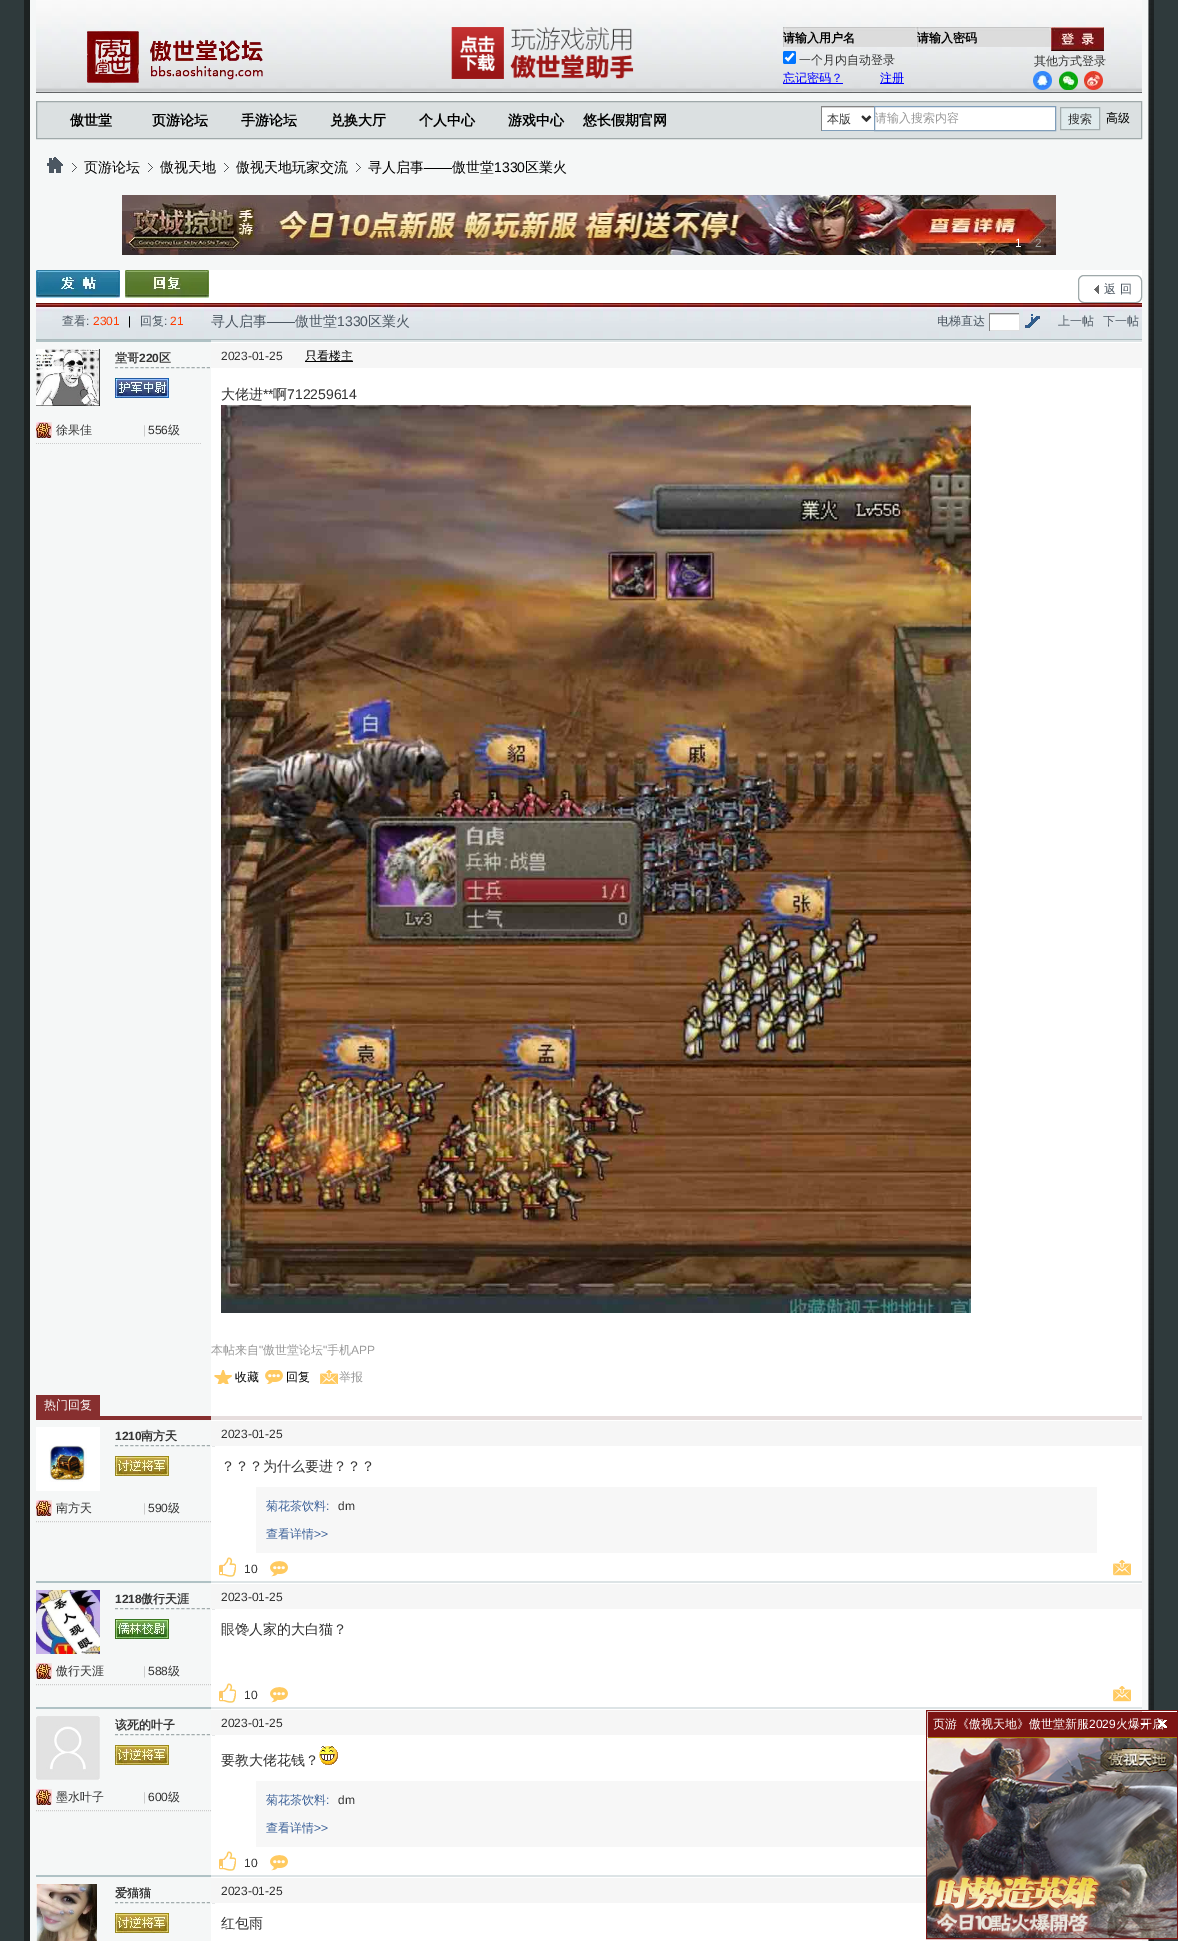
%!PS
<< /PageSize [1178 1941] >> setpagedevice
/mt/moveto load def
/li/lineto load def
/cp/closepath load def
/fl/fill load def
/st/stroke load def
/gs/gsave load def
/gr/grestore load def
/lw/setlinewidth load def
/co { dup -16 bitshift 255 div exch dup -8 bitshift 255 and 255 div exch 255 and 255 div setrgbcolor } def
/fn { [ exch dup neg 0 0 3 -1 roll 0 0 ] selectfont } def
/tx { co fn moveto show } def
/bx { co rectfill } def
/rr { 5 dict begin { /r /h /w /y /x } { exch def } forall
  x r add y moveto x w add y 2 copy h add r arct x w add y h add x 1 index r arct
  x y h add x y r arct x y 2 copy exch w add exch r arct closepath end } def
/im { 5 dict begin { /h /w /y /x /name } { exch def } forall
  gsave x y translate w h scale
  w h 8 [w 0 0 h 0 0] name (r) file false 3 colorimage grestore end } def
0 1941 translate 1 -1 scale
4 setmiterlimit
0 0 1178 1941 16#2F3A3C bx
30 0 1118 1941 16#F5F7F7 bx
(media/1.raw) 1148 0 6 1941 im
24 0 6 1941 16#1D2222 bx
(media/2.raw) 36 0 1106 93 im
(media/3.raw) 87 31 176 52 im
(media/4.raw) 451 27 183 52 im
(media/5.raw) 783 27 134 20 im
(media/5.raw) 917 27 134 20 im
(media/6.raw) 1051 27 53 24 im
16#0075FF co
783 51 13 13 2 rr fl
16#FFFFFF co
2.1 lw
785.5 57.5 mt 788 60 li 793.5 53.5 li st
783 83 60 1 16#0000FF bx
880 83 24 1 16#0000FF bx
(media/7.raw) 1033 71 19 19 im
(media/8.raw) 1059 71 19 19 im
(media/9.raw) 1084 71 19 19 im
16#DBE0E1 co
36.5 101.5 mt 1141.5 101.5 li 1141.5 138.5 li 36.5 138.5 li cp gs fl gr
16#9FA9AA co
1 lw
st
822 108 52 22 16#FFFFFF bx
(media/10.raw) 822 107 52 15 im
821 106 53 1 16#848484 bx
821 130 53 1 16#7F9DB9 bx
821 106 1 25 16#848484 bx
16#333333 co
2 lw
862.5 116.5 mt 866.5 120.5 li 870.5 116.5 li st
16#FFFFFF co
874.5 106.5 mt 1055.5 106.5 li 1055.5 130.5 li 874.5 130.5 li cp gs fl gr
16#7F9DB9 co
1 lw
st
16#E0EBED co
1060.5 107.5 mt 1099.5 107.5 li 1099.5 129.5 li 1060.5 129.5 li cp gs fl gr
16#A4AEAF co
st
(media/11.raw) 47 157 16 16 im
(media/12.raw) 72 163 5 9 im
(media/12.raw) 148 163 5 9 im
(media/12.raw) 224 163 5 9 im
(media/12.raw) 356 163 5 9 im
(media/13.raw) 122 195 934 60 im
36 270 1106 1671 16#FFFFFF bx
(media/14.raw) 36 270 84 28 im
(media/15.raw) 125 270 84 28 im
(media/16.raw) 1094 285 5 9 im
16#9FA9AA co
1078.5 275.5 63 27 5.5 rr st
(media/17.raw) 36 303 175 37 im
(media/18.raw) 211 303 931 37 im
990 315 29 15 16#FFFFFF bx
989 314 31 1 16#D4D4D4 bx
989 313 31 1 16#848484 bx
1019 313 1 18 16#E0E0E0 bx
989 330 31 1 16#E0E0E0 bx
989 313 1 18 16#848484 bx
(media/19.raw) 1025 314 15 14 im
36 340 175 2 16#B0C2C5 bx
211 340 931 2 16#DDE4E6 bx
36 342 175 1053 16#F5F7F7 bx
(media/20.raw) 36 349 64 57 im
gs
36 342 175 1053 rectclip
16#A2ACAD co
[3 2.11] 0 setdash
115 367.5 mt 215 367.5 li st
gr
(media/21.raw) 115 378 54 20 im
(media/22.raw) 36 422 16 16 im
gs
36 418 165 26 rectclip
16#CCCCCC co
[1 1] 0 setdash
36 443.5 mt 211 443.5 li st
gr
211 343 931 25 16#F6F6F6 bx
305 361 48 1 16#000000 bx
(media/23.raw) 221 405 750 908 im
(media/24.raw) 214 1370 18 14 im
(media/25.raw) 265 1370 18 14 im
(media/26.raw) 320 1370 18 14 im
100 1395 111 21 16#F5F7F7 bx
36 1395 64 21 16#872F2F bx
36 1416 175 4 16#872F2F bx
211 1416 931 4 16#E6DDDD bx
36 1420 175 161 16#F5F7F7 bx
36 1427 64 64 16#FFFFFF bx
(media/27.raw) 49 1445 38 37 im
16#A2ACAD co
[3 2.11] 0 setdash
115 1445.5 mt 215 1445.5 li st
(media/28.raw) 115 1456 54 20 im
(media/22.raw) 36 1500 16 16 im
16#CCCCCC co
[1 1] 0 setdash
36 1521.5 mt 211 1521.5 li st
211 1421 931 25 16#F6F6F6 bx
256 1487 841 66 16#F7F7F7 bx
(media/29.raw) 219 1557 17 20 im
(media/30.raw) 270 1561 18 16 im
(media/31.raw) 1113 1560 18 16 im
36 1581 175 2 16#B0C2C5 bx
211 1581 931 2 16#DDE4E6 bx
36 1583 175 124 16#F5F7F7 bx
(media/32.raw) 36 1590 64 64 im
16#A2ACAD co
[3 2.11] 0 setdash
115 1608.5 mt 215 1608.5 li st
(media/33.raw) 115 1619 54 20 im
(media/22.raw) 36 1663 16 16 im
16#CCCCCC co
[1 1] 0 setdash
36 1684.5 mt 211 1684.5 li st
211 1584 931 25 16#F6F6F6 bx
(media/29.raw) 219 1683 17 20 im
(media/30.raw) 270 1687 18 16 im
(media/31.raw) 1113 1686 18 16 im
36 1707 175 2 16#B0C2C5 bx
211 1707 931 2 16#DDE4E6 bx
36 1709 175 166 16#F5F7F7 bx
(media/34.raw) 36 1716 64 64 im
16#A2ACAD co
[3 2.11] 0 setdash
115 1734.5 mt 215 1734.5 li st
(media/28.raw) 115 1745 54 20 im
(media/22.raw) 36 1789 16 16 im
16#CCCCCC co
[1 1] 0 setdash
36 1810.5 mt 211 1810.5 li st
211 1710 715 25 16#F6F6F6 bx
(media/35.raw) 319 1746 19 19 im
256 1781 670 66 16#F7F7F7 bx
(media/29.raw) 219 1851 17 20 im
(media/30.raw) 270 1855 18 16 im
36 1875 175 2 16#B0C2C5 bx
211 1875 715 2 16#DDE4E6 bx
36 1877 175 64 16#F5F7F7 bx
(media/36.raw) 36 1884 61 57 im
16#A2ACAD co
[3 2.11] 0 setdash
115 1902.5 mt 215 1902.5 li st
(media/28.raw) 115 1913 54 20 im
211 1878 715 25 16#F6F6F6 bx
16#7C1413 co
[] 0 setdash
926.5 1710.5 251 228 rectstroke
928 1712 249 25 16#7C1413 bx
1142 1711 35 1 16#FFFFFF bx
927 1737 250 1 16#A67901 bx
927 1737 1 1 16#FFFFFF bx
1141 1723 7 2 16#FFFFFF bx
(media/38.raw) 927 1738 250 200 im
(请输入用户名) 783 42 /WenQuanYiZenHei-Bold 12 16#000000 tx
(请输入密码) 917 42 /WenQuanYiZenHei-Bold 12 16#000000 tx
(一个月内自动登录) 799 64 /WenQuanYiZenHei-Medium 12 16#333333 tx
(忘记密码？) 783 82 /WenQuanYiZenHei-Medium 12 16#0000FF tx
(注册) 880 82 /WenQuanYiZenHei-Medium 12 16#0000FF tx
(其他方式登录) 1034 65 /WenQuanYiZenHei-Medium 12 16#333333 tx
(傲世堂) 70 125 /WenQuanYiZenHei-Bold 14 16#000000 tx
(页游论坛) 152 125 /WenQuanYiZenHei-Bold 14 16#000000 tx
(手游论坛) 241 125 /WenQuanYiZenHei-Bold 14 16#000000 tx
(兑换大厅) 330 125 /WenQuanYiZenHei-Bold 14 16#000000 tx
(个人中心) 419 125 /WenQuanYiZenHei-Bold 14 16#000000 tx
(游戏中心) 508 125 /WenQuanYiZenHei-Bold 14 16#000000 tx
(悠长假期官网) 583 125 /WenQuanYiZenHei-Bold 14 16#000000 tx
(本版) 827 123 /WenQuanYiZenHei-Medium 12 16#333333 tx
(请输入搜索内容) 875 122 /WenQuanYiZenHei-Medium 12 16#999999 tx
(搜索) 1068 123 /WenQuanYiZenHei-Medium 12 16#333333 tx
(高级) 1106 122 /WenQuanYiZenHei-Medium 12 16#000000 tx
(页游论坛) 84 172 /WenQuanYiZenHei-Medium 14 16#000000 tx
(傲视天地) 160 172 /WenQuanYiZenHei-Medium 14 16#000000 tx
(傲视天地玩家交流) 236 172 /WenQuanYiZenHei-Medium 14 16#000000 tx
(寻人启事) 368 172 /WenQuanYiZenHei-Medium 14 16#000000 tx
(——) 424 172 /LiberationSans-Regular 14 16#000000 tx
(傲世堂) 452 172 /WenQuanYiZenHei-Medium 14 16#000000 tx
(1330) 494 172 /LiberationSans-Regular 14 16#000000 tx
(区業火) 525 172 /WenQuanYiZenHei-Medium 14 16#000000 tx
(1) 1015 247 /LiberationSans-Regular 12 16#FFFFFF tx
(2) 1035 247 /LiberationSans-Regular 12 16#9F9F9F tx
(返 回) 1104 293 /WenQuanYiZenHei-Medium 12 16#4C5762 tx
(查看) 62 325 /WenQuanYiZenHei-Medium 12 16#4C5762 tx
(:) 86 325 /LiberationSans-Regular 12 16#4C5762 tx
(2301) 93 325 /LiberationSans-Regular 12 16#FF3C00 tx
(|) 128 325 /LiberationSans-Regular 12 16#000000 tx
(回复) 140 325 /WenQuanYiZenHei-Medium 12 16#4C5762 tx
(:) 164 325 /LiberationSans-Regular 12 16#4C5762 tx
(21) 170 325 /LiberationSans-Regular 12 16#FF3C00 tx
(寻人启事) 211 326 /WenQuanYiZenHei-Medium 14 16#4C5762 tx
(——) 267 326 /LiberationSans-Regular 14 16#4C5762 tx
(傲世堂) 295 326 /WenQuanYiZenHei-Medium 14 16#4C5762 tx
(1330) 337 326 /LiberationSans-Regular 14 16#4C5762 tx
(区業火) 368 326 /WenQuanYiZenHei-Medium 14 16#4C5762 tx
(电梯直达) 937 325 /WenQuanYiZenHei-Medium 12 16#4C5762 tx
(上一帖) 1058 325 /WenQuanYiZenHei-Medium 12 16#4C5762 tx
(下一帖) 1103 325 /WenQuanYiZenHei-Medium 12 16#4C5762 tx
(堂哥) 115 362 /WenQuanYiZenHei-Bold 12 16#333333 tx
(220) 139 362 /LiberationSans-Bold 12 16#333333 tx
(区) 159 362 /WenQuanYiZenHei-Bold 12 16#333333 tx
(徐果佳) 56 434 /WenQuanYiZenHei-Medium 12 16#333333 tx
(|) 143 434 /LiberationSans-Regular 12 16#CCCCCC tx
(556) 148 434 /LiberationSans-Regular 12 16#333333 tx
(级) 168 434 /WenQuanYiZenHei-Medium 12 16#333333 tx
(2023-01-25) 221 360 /LiberationSans-Regular 12 16#333333 tx
(只看楼主) 305 360 /WenQuanYiZenHei-Medium 12 16#000000 tx
(大佬进) 221 399 /WenQuanYiZenHei-Medium 14 16#333333 tx
(**) 263 399 /LiberationSans-Regular 14 16#333333 tx
(啊) 273 399 /WenQuanYiZenHei-Medium 14 16#333333 tx
(712259614) 287 399 /LiberationSans-Regular 14 16#333333 tx
(本帖来自) 211 1354 /WenQuanYiZenHei-Medium 12 16#999999 tx
(") 259 1354 /LiberationSans-Regular 12 16#999999 tx
(傲世堂论坛) 263 1354 /WenQuanYiZenHei-Medium 12 16#999999 tx
(") 323 1354 /LiberationSans-Regular 12 16#999999 tx
(手机) 327 1354 /WenQuanYiZenHei-Medium 12 16#999999 tx
(APP) 351 1354 /LiberationSans-Regular 12 16#999999 tx
(收藏) 235 1381 /WenQuanYiZenHei-Medium 12 16#000000 tx
(回复) 286 1381 /WenQuanYiZenHei-Medium 12 16#000000 tx
(举报) 339 1381 /WenQuanYiZenHei-Medium 12 16#999999 tx
(热门回复) 44 1409 /WenQuanYiZenHei-Medium 12 16#FFFFFF tx
(1210) 115 1440 /LiberationSans-Bold 12 16#333333 tx
(南方天) 141 1440 /WenQuanYiZenHei-Bold 12 16#333333 tx
(南方天) 56 1512 /WenQuanYiZenHei-Medium 12 16#333333 tx
(|) 143 1512 /LiberationSans-Regular 12 16#CCCCCC tx
(590) 148 1512 /LiberationSans-Regular 12 16#333333 tx
(级) 168 1512 /WenQuanYiZenHei-Medium 12 16#333333 tx
(2023-01-25) 221 1438 /LiberationSans-Regular 12 16#333333 tx
(？？？为什么要进？？？) 221 1471 /WenQuanYiZenHei-Medium 14 16#333333 tx
(菊花茶饮料) 266 1510 /WenQuanYiZenHei-Medium 12 16#3D6299 tx
(:) 326 1510 /LiberationSans-Regular 12 16#3D6299 tx
(dm) 338 1510 /LiberationSans-Regular 12 16#333333 tx
(查看详情) 266 1538 /WenQuanYiZenHei-Medium 12 16#3D6299 tx
(>>) 314 1538 /LiberationSans-Regular 12 16#3D6299 tx
(10) 244 1573 /LiberationSans-Regular 12 16#333333 tx
(1218) 115 1603 /LiberationSans-Bold 12 16#333333 tx
(傲行天涯) 141 1603 /WenQuanYiZenHei-Bold 12 16#333333 tx
(傲行天涯) 56 1675 /WenQuanYiZenHei-Medium 12 16#333333 tx
(|) 143 1675 /LiberationSans-Regular 12 16#CCCCCC tx
(588) 148 1675 /LiberationSans-Regular 12 16#333333 tx
(级) 168 1675 /WenQuanYiZenHei-Medium 12 16#333333 tx
(2023-01-25) 221 1601 /LiberationSans-Regular 12 16#333333 tx
(眼馋人家的大白猫？) 221 1634 /WenQuanYiZenHei-Medium 14 16#333333 tx
(10) 244 1699 /LiberationSans-Regular 12 16#333333 tx
(该死的叶子) 115 1729 /WenQuanYiZenHei-Bold 12 16#333333 tx
(墨水叶子) 56 1801 /WenQuanYiZenHei-Medium 12 16#333333 tx
(|) 143 1801 /LiberationSans-Regular 12 16#CCCCCC tx
(600) 148 1801 /LiberationSans-Regular 12 16#333333 tx
(级) 168 1801 /WenQuanYiZenHei-Medium 12 16#333333 tx
(2023-01-25) 221 1727 /LiberationSans-Regular 12 16#333333 tx
(要教大佬花钱？) 221 1765 /WenQuanYiZenHei-Medium 14 16#333333 tx
(菊花茶饮料) 266 1804 /WenQuanYiZenHei-Medium 12 16#3D6299 tx
(:) 326 1804 /LiberationSans-Regular 12 16#3D6299 tx
(dm) 338 1804 /LiberationSans-Regular 12 16#333333 tx
(查看详情) 266 1832 /WenQuanYiZenHei-Medium 12 16#3D6299 tx
(>>) 314 1832 /LiberationSans-Regular 12 16#3D6299 tx
(10) 244 1867 /LiberationSans-Regular 12 16#333333 tx
(爱猫猫) 115 1897 /WenQuanYiZenHei-Bold 12 16#333333 tx
(2023-01-25) 221 1895 /LiberationSans-Regular 12 16#333333 tx
(红包雨) 221 1928 /WenQuanYiZenHei-Medium 14 16#333333 tx
(页游《傲视天地》傲世堂新服) 933 1728 /WenQuanYiZenHei-Medium 12 16#FFFFFF tx
(2029) 1089 1728 /LiberationSans-Regular 12 16#FFFFFF tx
(火爆开启) 1116 1728 /WenQuanYiZenHei-Medium 12 16#FFFFFF tx
(media/37.raw) 1158 1720 9 8 im
showpage
